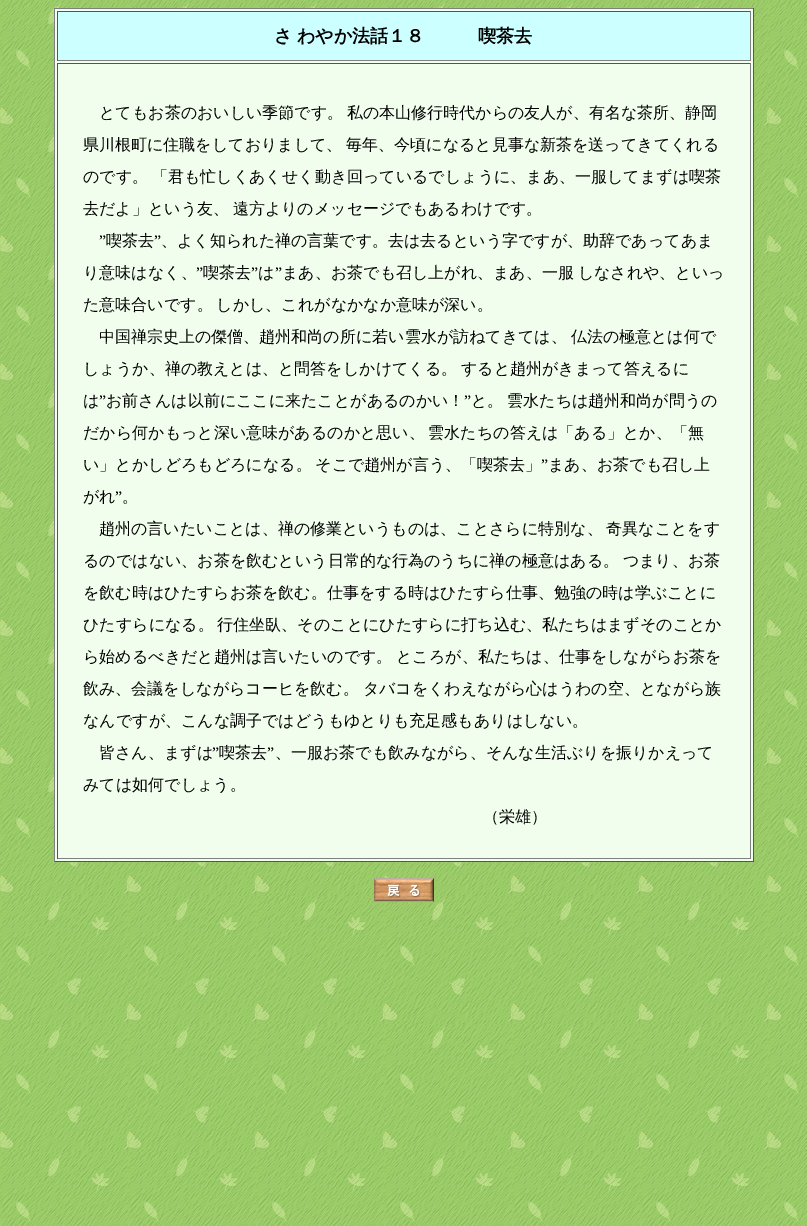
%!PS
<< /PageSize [807 1226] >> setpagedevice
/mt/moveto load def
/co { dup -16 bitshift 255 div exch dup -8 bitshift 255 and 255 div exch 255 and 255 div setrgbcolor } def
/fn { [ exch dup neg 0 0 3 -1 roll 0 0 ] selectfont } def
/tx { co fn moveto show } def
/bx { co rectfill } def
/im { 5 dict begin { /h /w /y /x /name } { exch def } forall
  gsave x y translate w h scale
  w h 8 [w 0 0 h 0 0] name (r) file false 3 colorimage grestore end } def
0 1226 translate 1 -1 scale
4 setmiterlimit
0 0 807 1226 16#FFFFFF bx
(media/1.raw) 0 0 807 1226 im
55 9 698 852 16#F1FEED bx
54 8 700 1 16#808080 bx
753 8 1 854 16#555555 bx
54 861 700 1 16#555555 bx
54 8 1 854 16#808080 bx
58 12 692 48 16#CCFFFF bx
57 11 694 1 16#555555 bx
750 11 1 50 16#808080 bx
57 60 694 1 16#808080 bx
57 11 1 50 16#555555 bx
57 63 694 1 16#555555 bx
750 63 1 796 16#808080 bx
57 858 694 1 16#808080 bx
57 63 1 796 16#555555 bx
(media/2.raw) 374 878 60 24 im
/WenQuanYiZenHei-Bold 18 fn
16#000000 co
274 42 mt -1 0 32 (さ わやか法話１８　　　喫茶去) widthshow
/WenQuanYiZenHei-Medium 16 fn
99 118 mt -1 0 32 (とてもお茶のおいしい季節です。 私の本山修行時代からの友人が、有名な茶所、静岡) widthshow
83 150 mt -1 0 32 (県川根町に住職をしておりまして、 毎年、今頃になると見事な新茶を送ってきてくれる) widthshow
83 182 mt -1 0 32 (のです。 「君も忙しくあくせく動き回っているでしょうに、まあ、一服してまずは喫茶) widthshow
83 214 mt -1 0 32 (去だよ」という友、 遠方よりのメッセージでもあるわけです。) widthshow
(”) 99 246 /LiberationSerif-Regular 16 16#000000 tx
(喫茶去) 106 246 /WenQuanYiZenHei-Medium 16 16#000000 tx
(”) 154 246 /LiberationSerif-Regular 16 16#000000 tx
(、よく知られた禅の言葉です。去は去るという字ですが、助辞であってあま) 161 246 /WenQuanYiZenHei-Medium 16 16#000000 tx
(り意味はなく、) 83 278 /WenQuanYiZenHei-Medium 16 16#000000 tx
(”) 196 278 /LiberationSerif-Regular 16 16#000000 tx
(喫茶去) 203 278 /WenQuanYiZenHei-Medium 16 16#000000 tx
(”) 251 278 /LiberationSerif-Regular 16 16#000000 tx
(は) 258 278 /WenQuanYiZenHei-Medium 16 16#000000 tx
(”) 275 278 /LiberationSerif-Regular 16 16#000000 tx
/WenQuanYiZenHei-Medium 16 fn
282 278 mt -1 0 32 (まあ、お茶でも召し上がれ、まあ、一服 しなされや、といっ) widthshow
83 310 mt -1 0 32 (た意味合いです。 しかし、これがなかなか意味が深い。) widthshow
99 342 mt -1 0 32 (中国禅宗史上の傑僧、趙州和尚の所に若い雲水が訪ねてきては、 仏法の極意とは何で) widthshow
83 374 mt -1 0 32 (しょうか、禅の教えとは、と問答をしかけてくる。 すると趙州がきまって答えるに) widthshow
(は) 83 406 /WenQuanYiZenHei-Medium 16 16#000000 tx
(”) 99 406 /LiberationSerif-Regular 16 16#000000 tx
(お前さんは以前にここに来たことがあるのかい！) 106 406 /WenQuanYiZenHei-Medium 16 16#000000 tx
(”) 464 406 /LiberationSerif-Regular 16 16#000000 tx
/WenQuanYiZenHei-Medium 16 fn
471 406 mt -1 0 32 (と。 雲水たちは趙州和尚が問うの) widthshow
83 438 mt -1 0 32 (だから何かもっと深い意味があるのかと思い、 雲水たちの答えは「ある」とか、「無) widthshow
83 470 mt -1 0 32 (い」とかしどろもどろになる。 そこで趙州が言う、「喫茶去」) widthshow
(”) 541 470 /LiberationSerif-Regular 16 16#000000 tx
(まあ、お茶でも召し上) 548 470 /WenQuanYiZenHei-Medium 16 16#000000 tx
(がれ) 83 502 /WenQuanYiZenHei-Medium 16 16#000000 tx
(”) 115 502 /LiberationSerif-Regular 16 16#000000 tx
(。) 122 502 /WenQuanYiZenHei-Medium 16 16#000000 tx
99 534 mt -1 0 32 (趙州の言いたいことは、禅の修業というものは、ことさらに特別な、 奇異なことをす) widthshow
83 566 mt -1 0 32 (るのではない、お茶を飲むという日常的な行為のうちに禅の極意はある。 つまり、お茶) widthshow
(を飲む時はひたすらお茶を飲む。仕事をする時はひたすら仕事、勉強の時は学ぶことに) 83 598 /WenQuanYiZenHei-Medium 16 16#000000 tx
83 630 mt -1 0 32 (ひたすらになる。 行住坐臥、そのことにひたすらに打ち込む、私たちはまずそのことか) widthshow
83 662 mt -1 0 32 (ら始めるべきだと趙州は言いたいのです。 ところが、私たちは、仕事をしながらお茶を) widthshow
83 694 mt -1 0 32 (飲み、会議をしながらコーヒを飲む。 タバコをくわえながら心はうわの空、とながら族) widthshow
(なんですが、こんな調子ではどうもゆとりも充足感もありはしない。) 83 726 /WenQuanYiZenHei-Medium 16 16#000000 tx
(皆さん、まずは) 99 758 /WenQuanYiZenHei-Medium 16 16#000000 tx
(”) 212 758 /LiberationSerif-Regular 16 16#000000 tx
(喫茶去) 219 758 /WenQuanYiZenHei-Medium 16 16#000000 tx
(”) 267 758 /LiberationSerif-Regular 16 16#000000 tx
(、一服お茶でも飲みながら、そんな生活ぶりを振りかえって) 275 758 /WenQuanYiZenHei-Medium 16 16#000000 tx
(みては如何でしょう。) 83 790 /WenQuanYiZenHei-Medium 16 16#000000 tx
(（栄雄）) 483 822 /WenQuanYiZenHei-Medium 16 16#000000 tx
showpage
